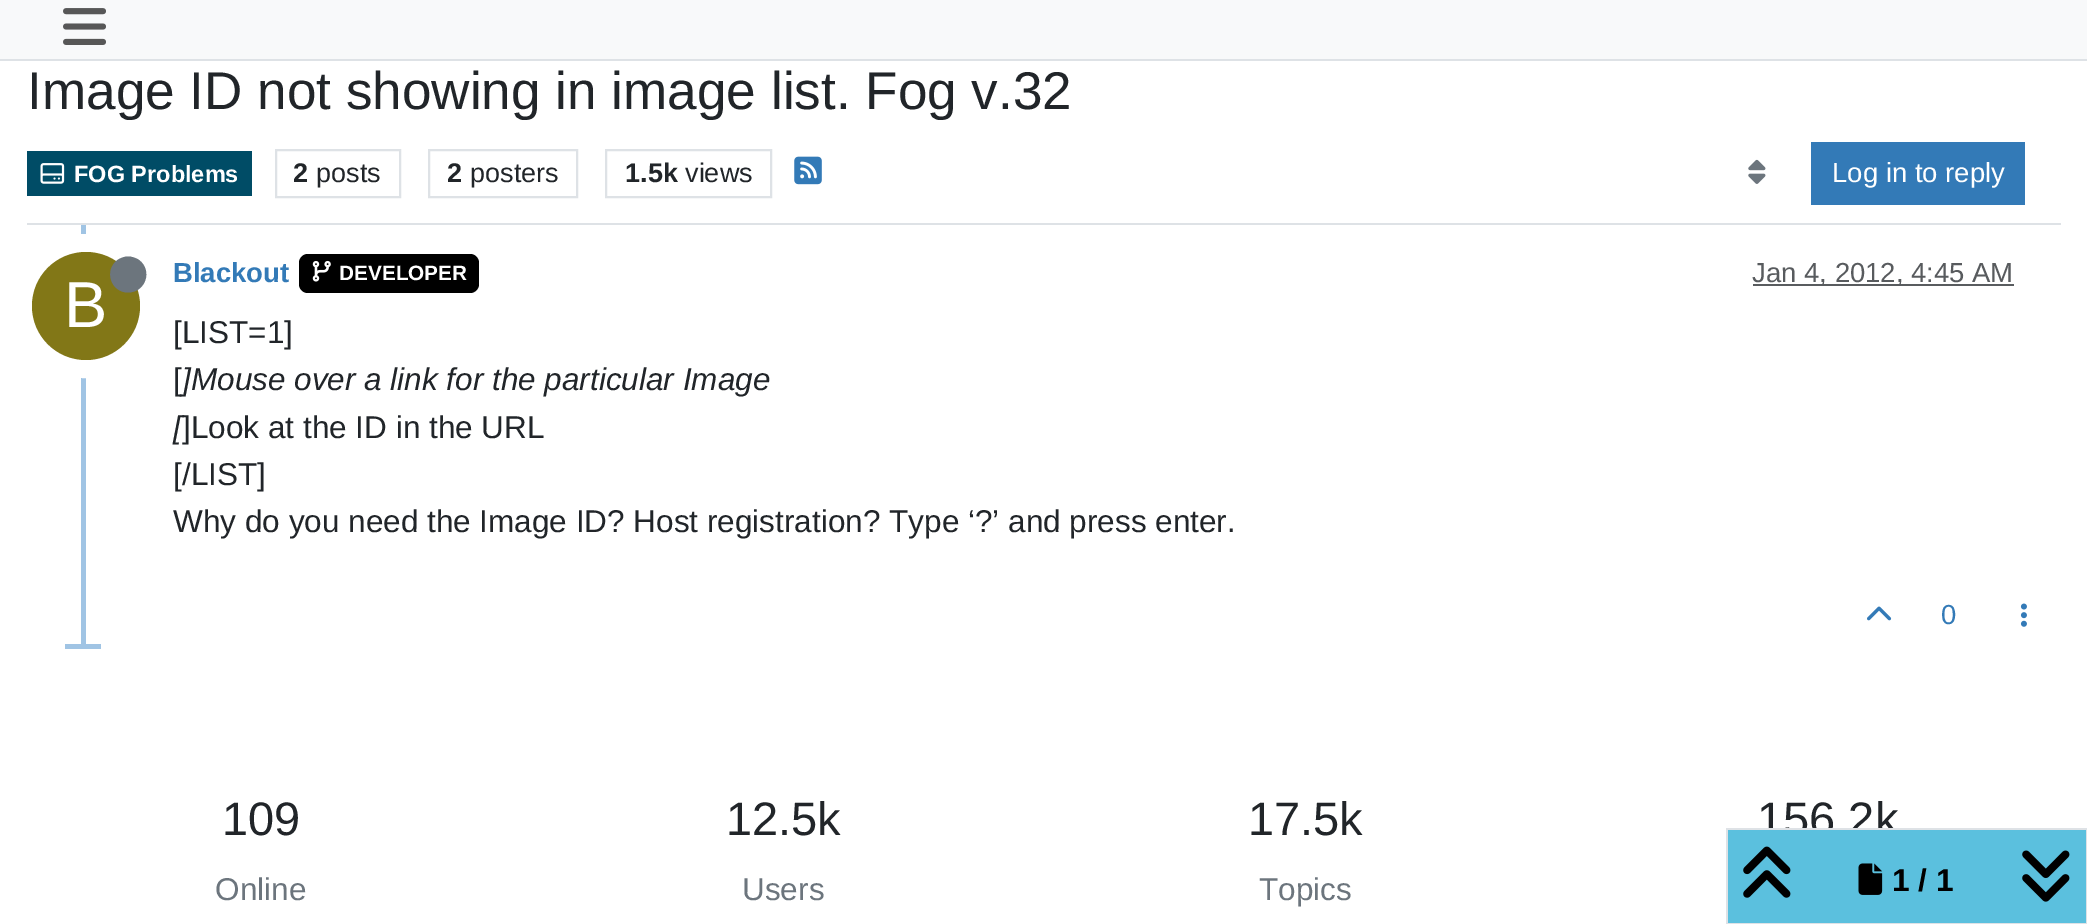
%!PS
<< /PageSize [2087 924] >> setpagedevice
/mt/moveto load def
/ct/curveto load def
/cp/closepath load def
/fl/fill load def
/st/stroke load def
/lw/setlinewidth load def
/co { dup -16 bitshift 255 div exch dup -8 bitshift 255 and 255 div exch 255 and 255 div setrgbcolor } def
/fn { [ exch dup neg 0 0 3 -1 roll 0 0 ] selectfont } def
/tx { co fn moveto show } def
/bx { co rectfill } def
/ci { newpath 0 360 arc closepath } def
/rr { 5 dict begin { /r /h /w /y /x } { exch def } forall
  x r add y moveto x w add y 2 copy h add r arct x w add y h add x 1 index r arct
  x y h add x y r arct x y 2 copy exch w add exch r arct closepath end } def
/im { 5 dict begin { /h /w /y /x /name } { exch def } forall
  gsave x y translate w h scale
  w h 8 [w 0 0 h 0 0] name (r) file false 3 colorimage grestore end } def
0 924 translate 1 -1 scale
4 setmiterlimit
0 0 2087 924 16#FFFFFF bx
0 0 2087 59 16#F8F9FA bx
0 59 2087 2 16#DEE2E6 bx
(media/1.raw) 63 8 43 37 im
27 223 2034 2 16#DEE2E6 bx
27 151 225 45 16#004C66 bx
(media/2.raw) 40 163 25 21 im
16#DEE2E6 co
2 lw
276 150 124 47 rectstroke
429 150 148 47 rectstroke
606 150 165 47 rectstroke
(media/3.raw) 794 156 28 29 im
(media/4.raw) 1748 159 18 25 im
1811 142 214 63 16#337AB7 bx
81 225 5 423 16#A0C4E4 bx
16#000000 co
299 254 180 39 9 rr fl
(media/5.raw) 312 260 19 22 im
1753 284 261 2 16#595C5F bx
16#FFFFFF co
18 lw
86 306 63 ci st
16#827717 co
86 306 54 ci fl
16#6C757D co
128 292.5 mt 145.5 292.5 153 270.5 139 260 ct 136 258 132 256.5 128 256.5 ct 124.5 256.5 120.5 258 117.5 260 ct 103.5 270.5 111 292.5 128 292.5 ct cp fl
(media/6.raw) 1867 606 25 15 im
(media/7.raw) 2020 603 7 24 im
65 644 36 5 16#A0C4E4 bx
(Image ID not showing in image list. Fog v.32) 27 109 /LiberationSans-Regular 53.1 16#212529 tx
(FOG Problems) 74 182 /LiberationSans-Bold 23.5 16#FFFFFF tx
(2) 293 182 /LiberationSans-Bold 27 16#212529 tx
(posts) 316 182 /LiberationSans-Regular 27 16#212529 tx
(2) 447 182 /LiberationSans-Bold 27 16#212529 tx
(posters) 470 182 /LiberationSans-Regular 27 16#212529 tx
(1.5k) 625 182 /LiberationSans-Bold 27 16#212529 tx
(views) 685 182 /LiberationSans-Regular 27 16#212529 tx
(Log in to reply) 1832 182 /LiberationSans-Regular 27.5 16#FFFFFF tx
(Blackout) 173 282 /LiberationSans-Bold 27.5 16#337AB7 tx
(DEVELOPER) 339 280 /LiberationSans-Bold 20.75 16#FFFFFF tx
(Jan 4, 2012, 4:45 AM) 1752 282 /LiberationSans-Regular 27.5 16#585B5E tx
(B) 64 327 /LiberationSans-Regular 65 16#FFFFFF tx
([LIST=1]) 173 343 /LiberationSans-Regular 31.5 16#212529 tx
([) 173 390 /LiberationSans-Regular 31.5 16#212529 tx
(]Mouse over a link for the particular Image) 182 390 /LiberationSans-Italic 31.5 16#212529 tx
([) 173 438 /LiberationSans-Italic 31.5 16#212529 tx
(]Look at the ID in the URL) 182 438 /LiberationSans-Regular 31.5 16#212529 tx
([/LIST]) 173 485 /LiberationSans-Regular 31.5 16#212529 tx
(Why do you need the Image ID? Host registration? Type ‘?’ and press enter.) 173 532 /LiberationSans-Regular 31.5 16#212529 tx
(0) 1941 624 /LiberationSans-Regular 27.5 16#337AB7 tx
(109) 222 835 /LiberationSans-Regular 47 16#212529 tx
(Online) 215 900 /LiberationSans-Regular 31.5 16#6C757D tx
(12.5k) 726 835 /LiberationSans-Regular 47 16#212529 tx
(Users) 742 900 /LiberationSans-Regular 31.5 16#6C757D tx
(17.5k) 1248 835 /LiberationSans-Regular 47 16#212529 tx
(Topics) 1259 900 /LiberationSans-Regular 31.5 16#6C757D tx
(156.2k) 1757 835 /LiberationSans-Regular 47 16#212529 tx
16#DEE2E6 co
2 lw
1727 829 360 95 rectstroke
1728 830 358 93 16#5BC0DE bx
(1 / 1) 1892 891 /LiberationSans-Bold 31.5 16#000000 tx
(media/9.raw) 1858 863 25 32 im
(media/10.raw) 2022 850 48 52 im
(media/8.raw) 1743 846 48 52 im
showpage
